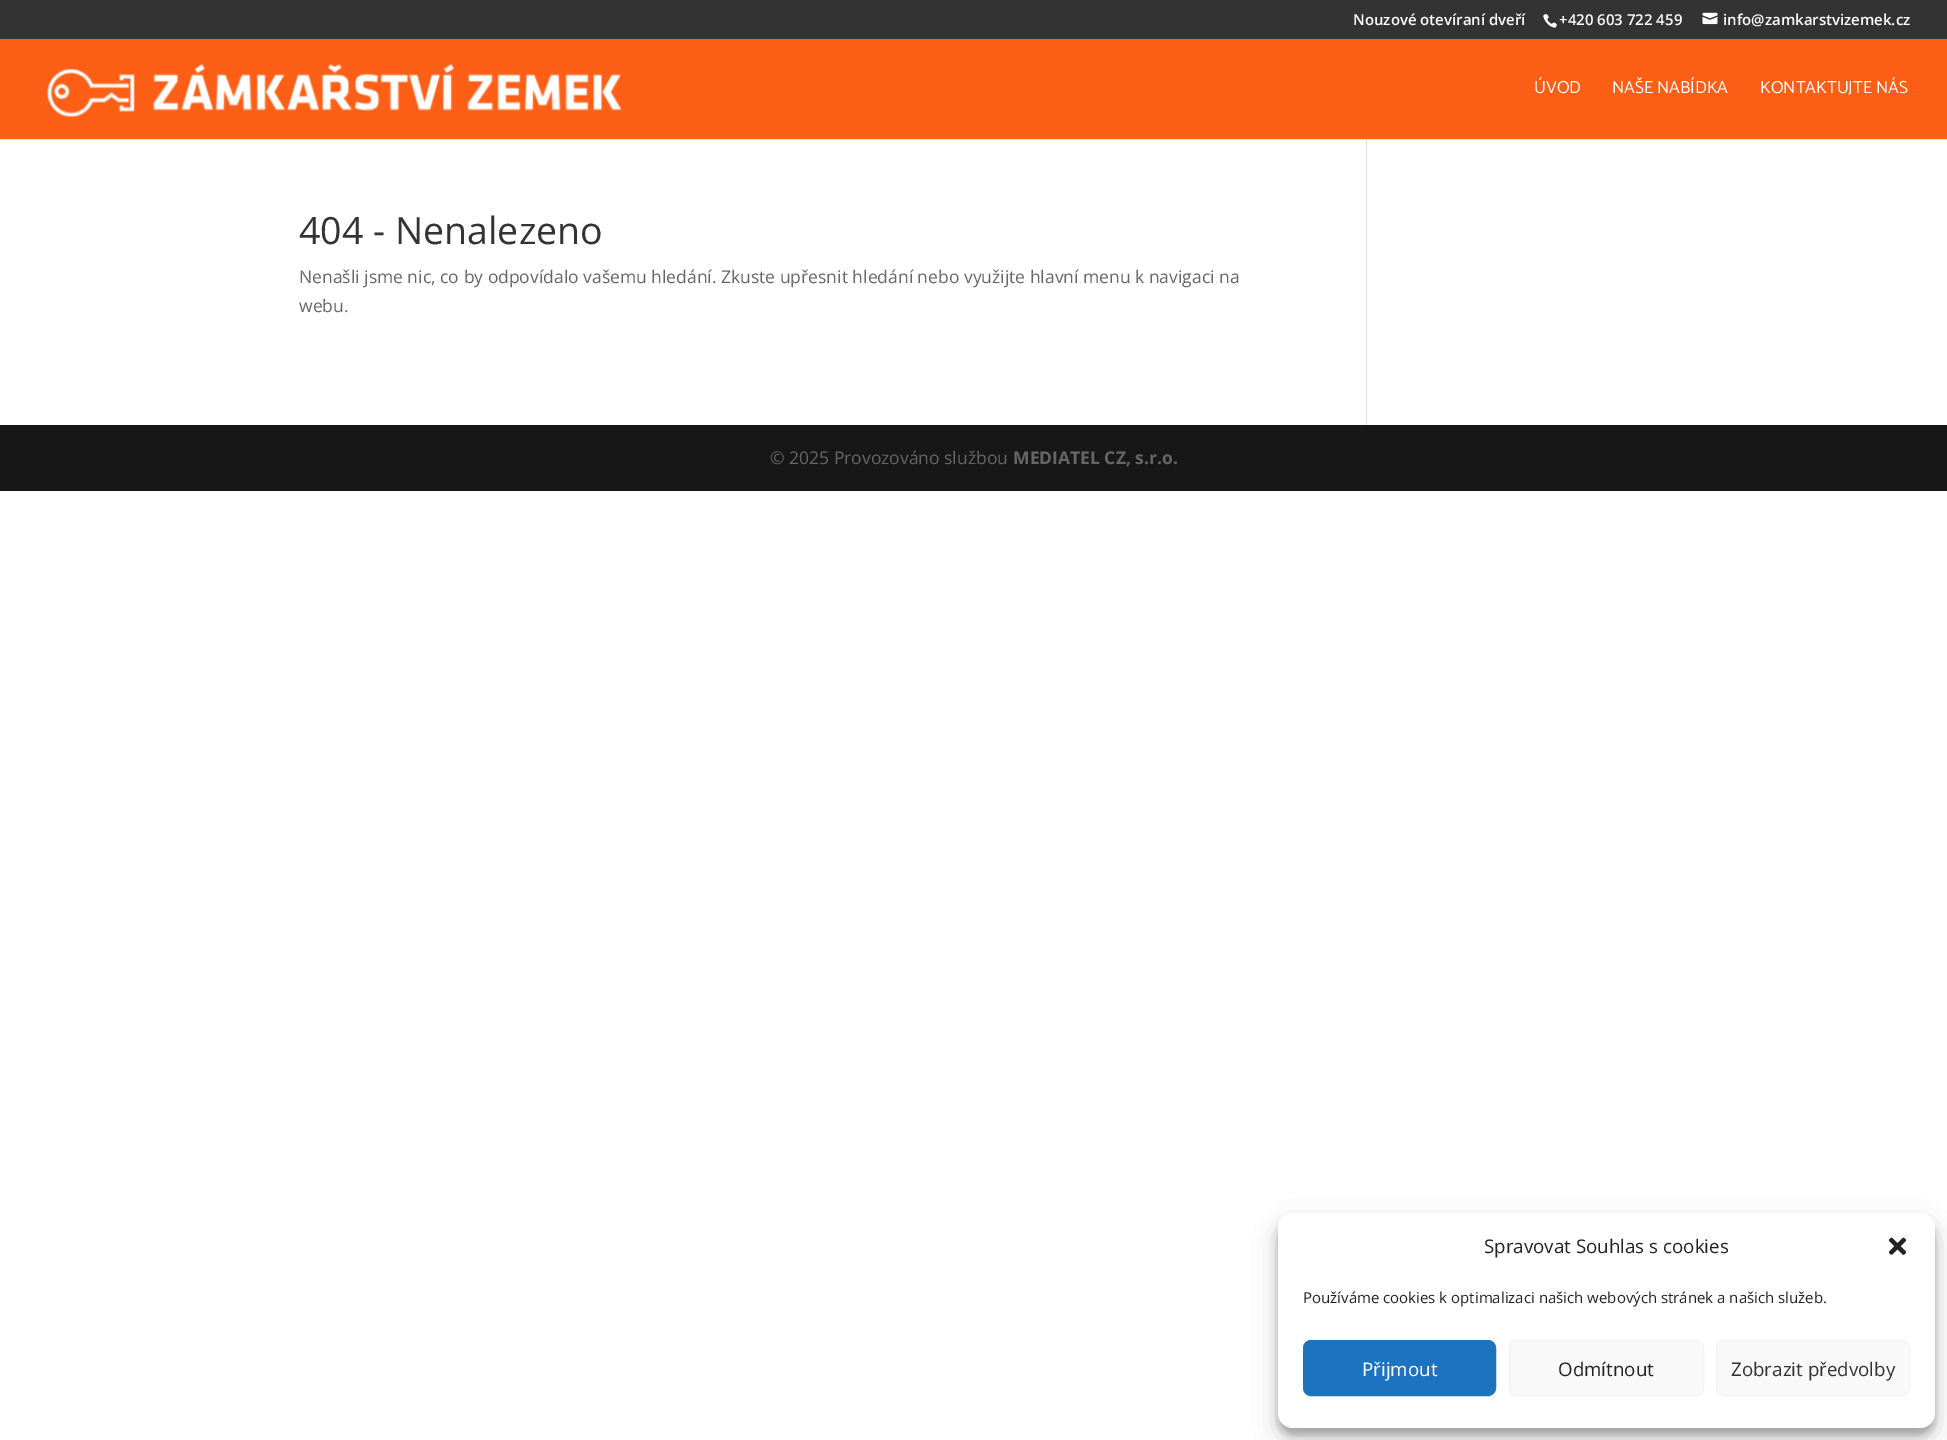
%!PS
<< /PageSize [1947 1440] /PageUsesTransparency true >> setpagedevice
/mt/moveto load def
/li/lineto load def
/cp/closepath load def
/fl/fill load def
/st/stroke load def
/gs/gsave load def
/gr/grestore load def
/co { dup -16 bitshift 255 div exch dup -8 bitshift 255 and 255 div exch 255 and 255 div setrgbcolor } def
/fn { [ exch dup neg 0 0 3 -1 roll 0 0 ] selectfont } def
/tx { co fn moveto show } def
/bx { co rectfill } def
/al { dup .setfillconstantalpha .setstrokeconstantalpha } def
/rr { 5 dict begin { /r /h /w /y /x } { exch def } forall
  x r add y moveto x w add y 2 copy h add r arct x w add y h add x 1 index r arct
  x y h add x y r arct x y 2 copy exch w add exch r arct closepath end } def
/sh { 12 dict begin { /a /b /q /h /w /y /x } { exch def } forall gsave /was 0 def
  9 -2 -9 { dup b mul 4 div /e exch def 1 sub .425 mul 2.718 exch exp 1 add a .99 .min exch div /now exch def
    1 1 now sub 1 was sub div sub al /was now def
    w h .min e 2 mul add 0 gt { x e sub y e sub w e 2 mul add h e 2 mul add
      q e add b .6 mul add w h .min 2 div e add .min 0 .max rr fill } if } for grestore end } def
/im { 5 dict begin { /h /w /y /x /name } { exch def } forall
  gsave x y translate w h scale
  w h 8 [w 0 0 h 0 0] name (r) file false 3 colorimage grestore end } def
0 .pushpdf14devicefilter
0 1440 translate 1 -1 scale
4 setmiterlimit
0 0 1947 1440 16#FFFFFF bx
0 0 1947 39 16#333333 bx
(media/1.raw) 1543 14 14 14 im
(media/2.raw) 1702 12 16 13 im
1366 139 1 286 16#E2E2E2 bx
0.1 al
16#000000 co
0 139 mt 0 140 li 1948 140 li 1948 40 li 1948 139 li cp fl
1 al
0 39 1947 100 16#FD5F17 bx
(media/3.raw) 47 63 575 55 im
0 425 1947 66 16#171717 bx
16#000000 co
1278 1220 657 215 15 4 .23 sh
1278 1225 657 215 15 12.5 .19 sh
16#FFFFFF co
1278 1213 657 215 15 rr fl
(media/4.raw) 1888 1237 19 18 im
16#1E73BE co
1303.5 1340.5 192 55 7.5 rr gs fl gr
st
16#F9F9F9 co
1509.5 1340.5 194 55 7.5 rr gs fl gr
16#F2F2F2 co
st
16#F9F9F9 co
1716.5 1340.5 193 55 7.5 rr gs fl gr
16#F2F2F2 co
st
(Nouzové otevíraní dveří) 1353 25 /OpenSans-SemiBold 15 16#FFFFFF tx
(+420 603 722 459) 1559 25 /OpenSans-SemiBold 15 16#FFFFFF tx
(info@zamkarstvizemek.cz) 1723 25 /OpenSans-SemiBold 15 16#FFFFFF tx
(ÚVOD) 1534 93 /Catamaran-Regular 17.5 16#FFFFFF tx
(NAŠE NABÍDKA) 1612 93 /Catamaran-Regular 17.5 16#FFFFFF tx
(KONTAKTUJTE NÁS) 1760 93 /Catamaran-Regular 17.5 16#FFFFFF tx
(404 - Nenalezeno) 299 244 /OpenSans-Regular 37.5 16#333333 tx
(Nenašli jsme nic, co by odpovídalo vašemu hledání. Zkuste upřesnit hledání nebo využijte hlavní menu k navigaci na) 299 283 /OpenSans-Regular 17.5 16#666666 tx
(webu.) 299 312 /OpenSans-Regular 17.5 16#666666 tx
(© 2025 Provozováno službou) 770 464 /OpenSans-Regular 17.5 16#666666 tx
(MEDIATEL CZ, s.r.o.) 1013 464 /OpenSans-Bold 17.5 16#666666 tx
(Spravovat Souhlas s cookies) 1484 1253 /OpenSans-Regular 18.75 16#222222 tx
(Používáme cookies k optimalizaci našich webových stránek a našich služeb.) 1303 1303 /OpenSans-Regular 15 16#222222 tx
(Přijmout) 1362 1376 /OpenSans-Regular 18.75 16#FFFFFF tx
(Odmítnout) 1558 1376 /OpenSans-Regular 18.75 16#222222 tx
(Zobrazit předvolby) 1731 1376 /OpenSans-Regular 18.75 16#333333 tx
.poppdf14devicefilter showpage
